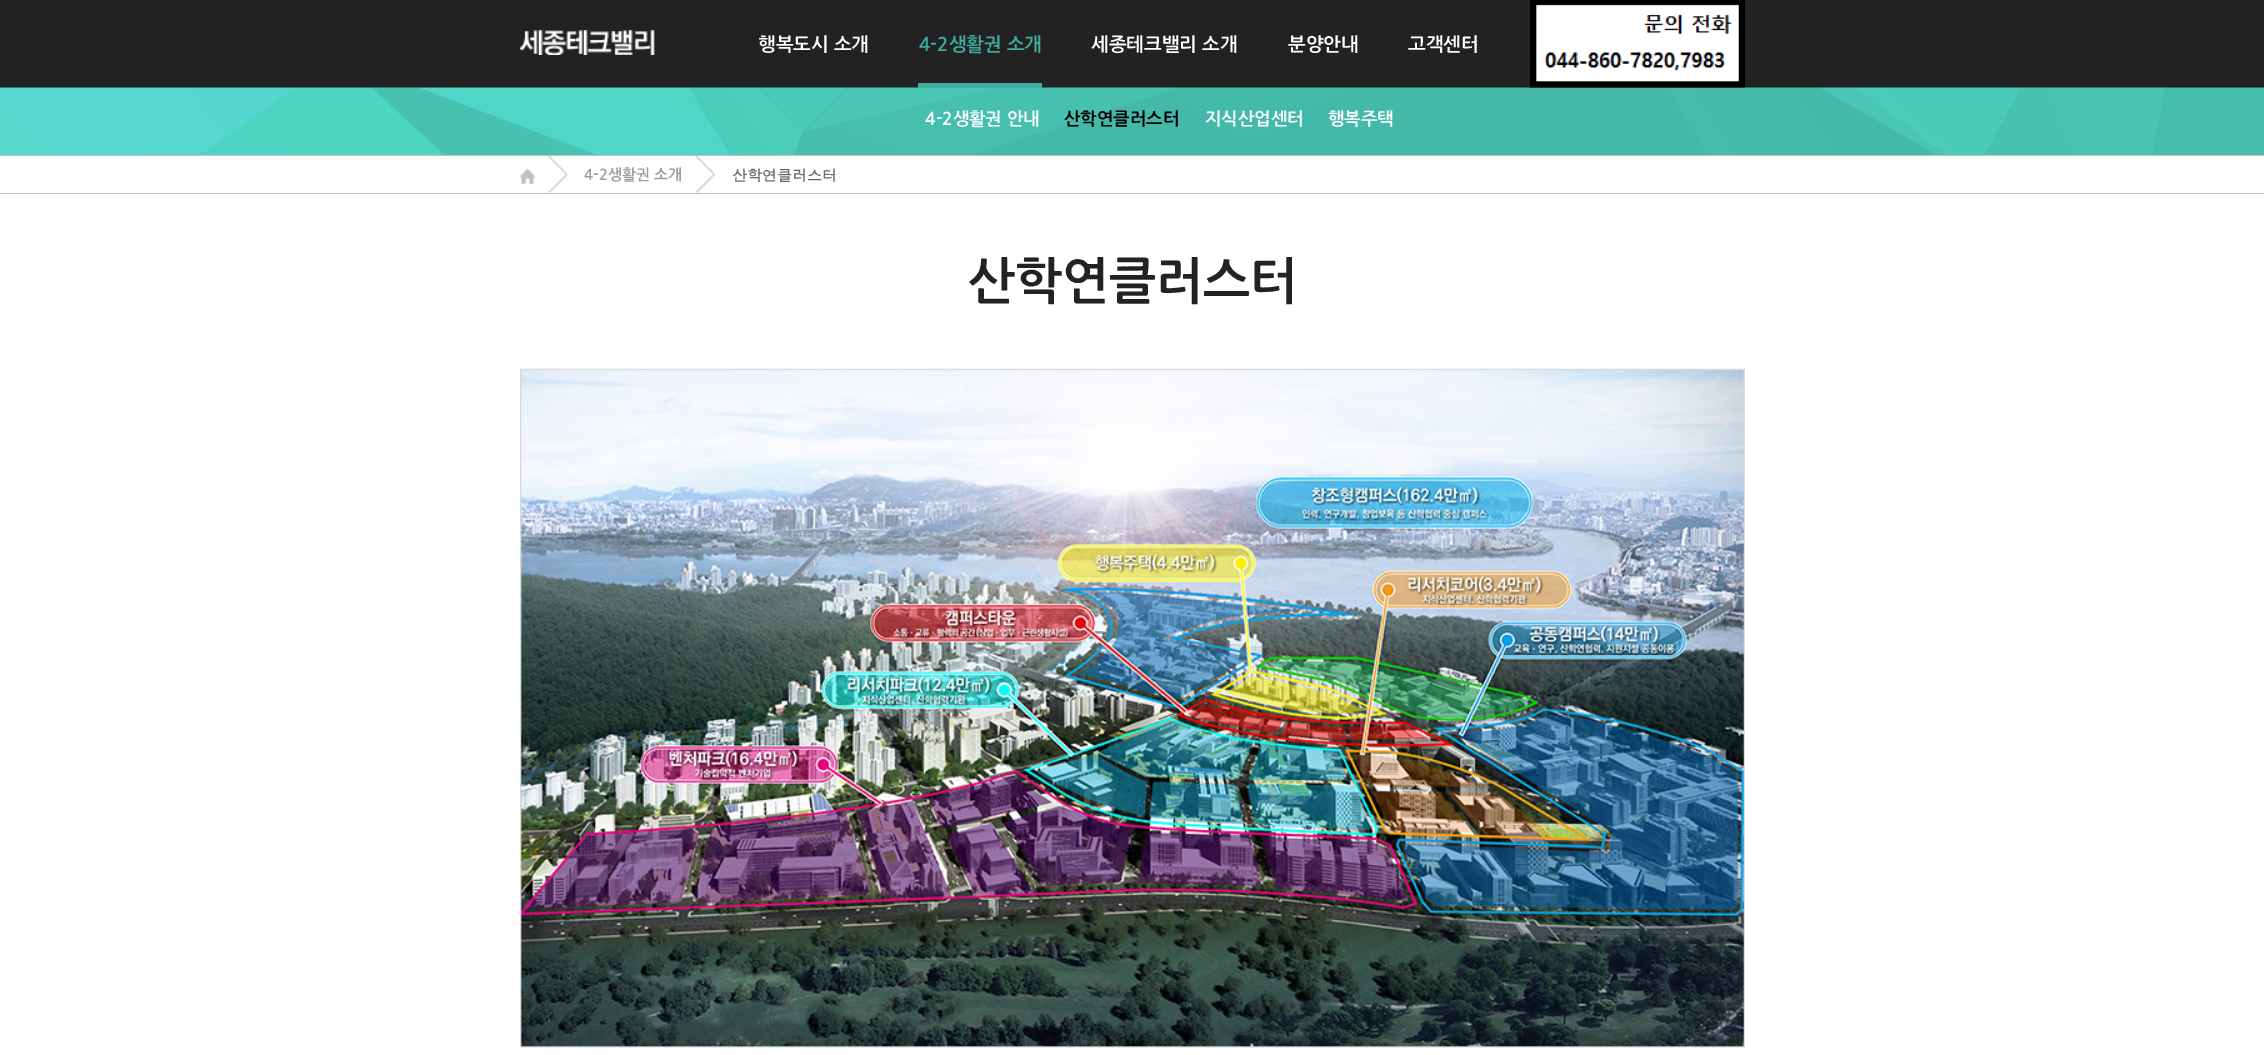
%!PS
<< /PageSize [2264 1055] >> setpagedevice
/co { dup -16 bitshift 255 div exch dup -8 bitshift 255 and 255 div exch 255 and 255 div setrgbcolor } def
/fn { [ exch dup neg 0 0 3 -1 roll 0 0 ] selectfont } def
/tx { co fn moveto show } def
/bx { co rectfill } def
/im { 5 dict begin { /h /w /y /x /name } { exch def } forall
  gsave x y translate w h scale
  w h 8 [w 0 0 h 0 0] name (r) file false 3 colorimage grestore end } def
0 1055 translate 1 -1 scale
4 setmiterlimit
0 0 2264 1055 16#FFFFFF bx
(media/1.raw) 0 0 2264 155 im
(media/2.raw) 520 30 135 25 im
918 83 124 5 16#3FAC9D bx
(media/3.raw) 1530 0 215 88 im
0 155 2264 1 16#C0C0C0 bx
0 193 2264 1 16#C0C0C0 bx
(media/4.raw) 547 156 21 37 im
(media/5.raw) 520 168 15 16 im
(media/6.raw) 695 156 20 37 im
(media/7.raw) 520 368 1225 680 im
(행복도시 소개) 758 51 /NanumGothic-Bold 18.75 16#FFFFFF tx
(4-2생활권 소개) 919 51 /NanumGothic-Bold 18.75 16#3FAC9D tx
(4-2생활권 안내) 925 125 /NanumGothic-Bold 17.5 16#FFFFFF tx
(산학연클러스터) 1064 125 /NanumGothic-Bold 17.5 16#000000 tx
(지식산업센터) 1205 125 /NanumGothic-Bold 17.5 16#FFFFFF tx
(행복주택) 1328 125 /NanumGothic-Bold 17.5 16#FFFFFF tx
(세종테크밸리 소개) 1091 51 /NanumGothic-Bold 18.75 16#FFFFFF tx
(분양안내) 1288 51 /NanumGothic-Bold 18.75 16#FFFFFF tx
(고객센터) 1408 51 /NanumGothic-Bold 18.75 16#FFFFFF tx
(4-2생활권 소개) 584 180 /NanumGothic-Bold 15 16#9E9E9E tx
(산학연클러스터) 732 181 /Dotum-Bold 15 16#6B6B6B tx
(산학연클러스터) 968 299 /NanumGothic-Bold 50 16#222222 tx
showpage
